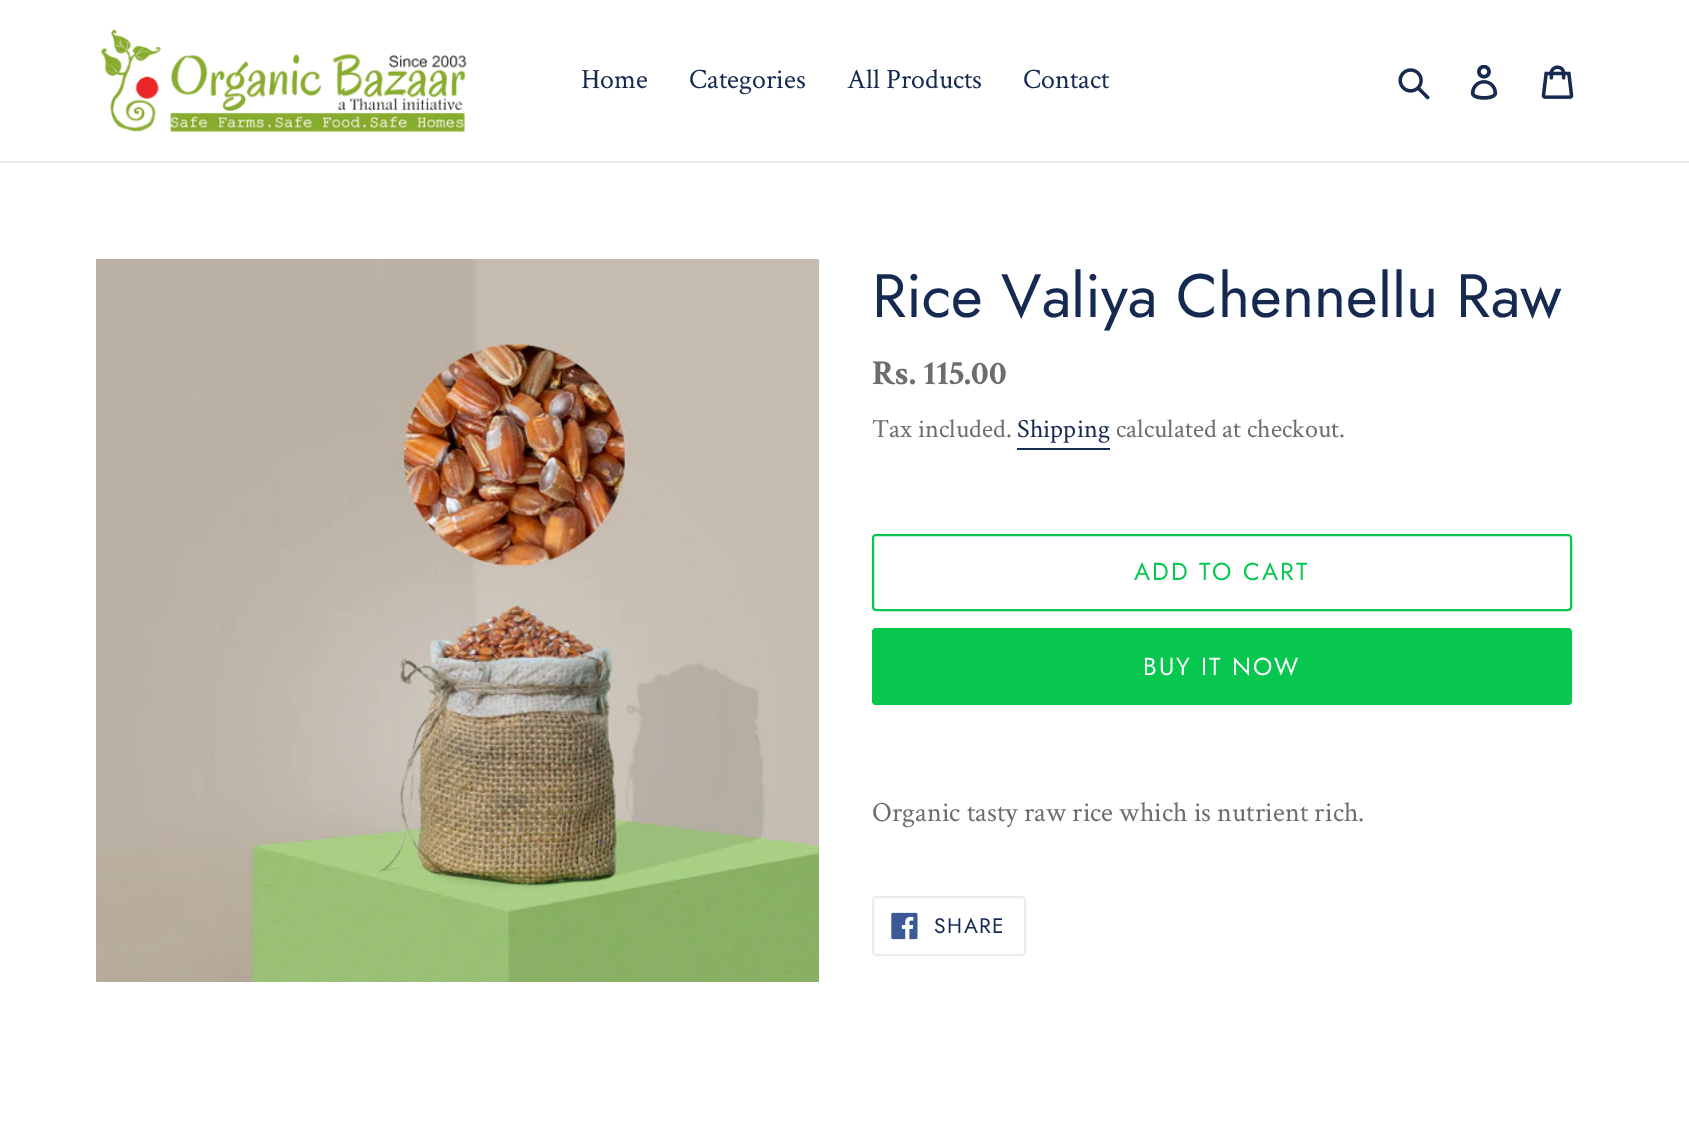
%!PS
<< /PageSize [1689 1129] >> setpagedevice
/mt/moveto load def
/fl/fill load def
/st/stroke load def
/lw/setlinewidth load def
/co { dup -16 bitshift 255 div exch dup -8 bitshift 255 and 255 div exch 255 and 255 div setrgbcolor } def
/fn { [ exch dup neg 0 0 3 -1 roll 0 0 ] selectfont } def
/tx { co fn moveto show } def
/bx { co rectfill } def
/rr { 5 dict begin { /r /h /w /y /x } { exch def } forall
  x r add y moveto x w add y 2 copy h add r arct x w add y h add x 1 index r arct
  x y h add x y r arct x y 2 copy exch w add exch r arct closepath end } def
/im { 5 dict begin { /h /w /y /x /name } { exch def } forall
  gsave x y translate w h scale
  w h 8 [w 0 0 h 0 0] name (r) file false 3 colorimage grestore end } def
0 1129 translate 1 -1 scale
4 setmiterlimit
0 0 1689 1129 16#FFFFFF bx
0 161 1689 2 16#EDEDED bx
(media/1.raw) 100 29 367 103 im
(media/2.raw) 1398 68 32 32 im
(media/3.raw) 1470 65 28 35 im
(media/4.raw) 1541 65 33 34 im
(media/5.raw) 96 259 723 723 im
1017 448 93 2 16#162950 bx
16#07C74F co
2 lw
873 535 698 75 3 rr st
872 628 700 77 4 rr fl
16#EDEDED co
873 897 152 58 3 rr st
(media/6.raw) 891 912 27 28 im
(Home) 581 88 /CrimsonText-Regular 28 16#162950 tx
(Categories) 689 88 /CrimsonText-Regular 28 16#162950 tx
(All Products) 847 88 /CrimsonText-Regular 28 16#162950 tx
(Contact) 1023 88 /CrimsonText-Regular 28 16#162950 tx
(Rice Valiya Chennellu Raw) 872 317 /Jost-Regular 61.25 16#162950 tx
(Rs. 115.00) 872 384 /CrimsonText-Bold 35 16#6D6D6D tx
(Tax included.) 872 437 /CrimsonText-Regular 26.25 16#6D6D6D tx
(Shipping) 1017 437 /CrimsonText-Regular 26.25 16#162950 tx
(calculated at checkout.) 1116 437 /CrimsonText-Regular 26.25 16#6D6D6D tx
/Jost-Regular 24.5 fn
16#07C74F co
1134 580 mt 2 0 (ADD TO CART) ashow
16#FFFFFF co
1143 675 mt 2 0 (BUY IT NOW) ashow
(Organic tasty raw rice which is nutrient rich.) 872 821 /CrimsonText-Regular 28 16#6D6D6D tx
/Jost-Regular 21 fn
16#162950 co
934 933 mt 1.5 0 (SHARE) ashow
showpage
